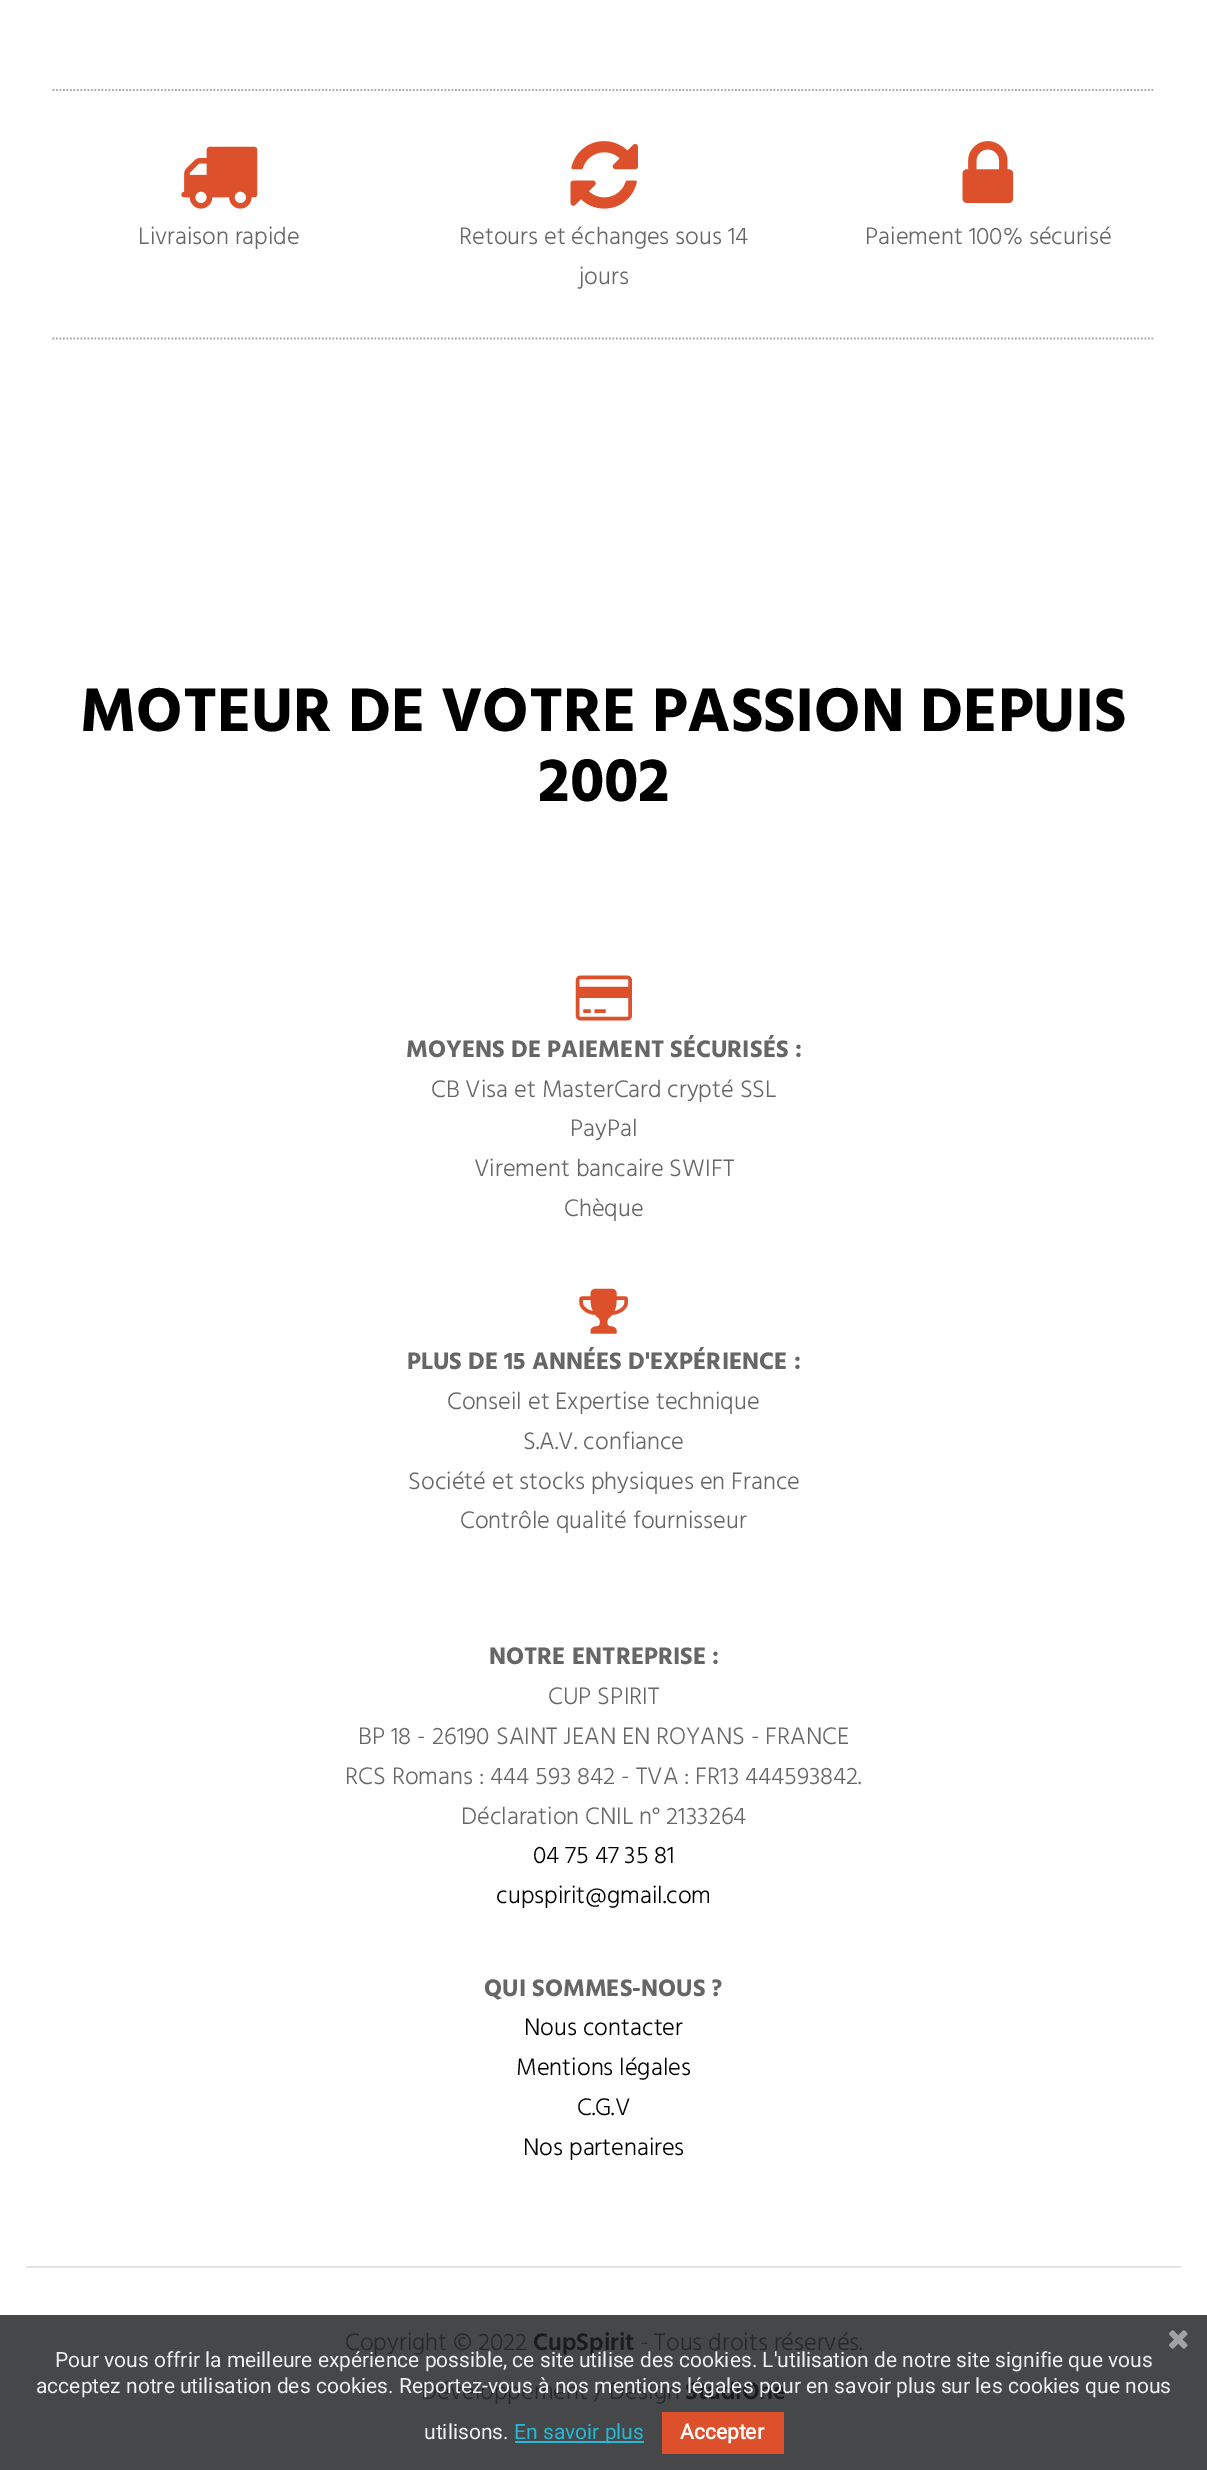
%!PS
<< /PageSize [1207 2470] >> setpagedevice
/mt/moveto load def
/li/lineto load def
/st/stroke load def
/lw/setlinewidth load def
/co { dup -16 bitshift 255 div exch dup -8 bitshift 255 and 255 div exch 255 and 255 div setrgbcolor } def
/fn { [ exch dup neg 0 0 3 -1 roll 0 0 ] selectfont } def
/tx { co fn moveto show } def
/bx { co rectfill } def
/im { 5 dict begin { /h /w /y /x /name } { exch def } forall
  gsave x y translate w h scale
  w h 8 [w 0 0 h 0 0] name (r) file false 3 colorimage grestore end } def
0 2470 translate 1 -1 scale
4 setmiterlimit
0 0 1207 2470 16#FFFFFF bx
0 2315 1207 155 16#454749 bx
16#AAAAAA co
1.8 lw
[1.75 1.75] 0 setdash
52.5 90 mt 1155 90 li st
(media/1.raw) 181 146 77 63 im
(media/2.raw) 570 141 68 68 im
(media/3.raw) 962 141 52 62 im
52.5 338.5 mt 1155 338.5 li st
(media/4.raw) 575 975 57 46 im
(media/5.raw) 579 1288 49 46 im
26 2266 1155 2 16#E5E5E5 bx
(media/6.raw) 1169 2330 19 19 im
515 2441 129 2 16#25B9D7 bx
662 2412 122 42 16#DC502C bx
(Livraison rapide) 138 244 /Hind-Light 24.5 16#666666 tx
(Retours et échanges sous 14) 459 244 /Hind-Light 24.5 16#666666 tx
(jours) 579 284 /Hind-Light 24.5 16#666666 tx
(Paiement 100% sécurisé) 865 244 /Hind-Light 24.5 16#666666 tx
(MOTEUR DE VOTRE PASSION DEPUIS) 80 731 /Hind-Bold 63 16#000000 tx
(2002) 538 801 /Hind-Bold 63 16#000000 tx
(MOYENS DE PAIEMENT SÉCURISÉS :) 406 1057 /Hind-Bold 24.5 16#666666 tx
(CB Visa et MasterCard crypté SSL) 431 1097 /Hind-Light 24.5 16#666666 tx
(PayPal) 570 1136 /Hind-Light 24.5 16#666666 tx
(Virement bancaire SWIFT) 474 1176 /Hind-Light 24.5 16#666666 tx
(Chèque) 564 1216 /Hind-Light 24.5 16#666666 tx
(PLUS DE 15 ANNÉES D'EXPÉRIENCE :) 407 1369 /Hind-Bold 24.5 16#666666 tx
(Conseil et Expertise technique) 447 1409 /Hind-Light 24.5 16#666666 tx
(S.A.V. confiance) 523 1449 /Hind-Light 24.5 16#666666 tx
(Société et stocks physiques en France) 408 1489 /Hind-Light 24.5 16#666666 tx
(Contrôle qualité fournisseur) 460 1528 /Hind-Light 24.5 16#666666 tx
(NOTRE ENTREPRISE :) 489 1664 /Hind-Bold 24.5 16#666666 tx
(CUP SPIRIT) 548 1704 /Hind-Light 24.5 16#666666 tx
(BP 18 - 26190 SAINT JEAN EN ROYANS - FRANCE) 358 1744 /Hind-Light 24.5 16#666666 tx
(RCS Romans : 444 593 842 - TVA : FR13 444593842.) 345 1784 /Hind-Light 24.5 16#666666 tx
(Déclaration CNIL n° 2133264) 461 1824 /Hind-Light 24.5 16#666666 tx
(04 75 47 35 81) 533 1863 /Hind-Light 24.5 16#000000 tx
(cupspirit@gmail.com) 496 1903 /Hind-Light 24.5 16#000000 tx
(QUI SOMMES-NOUS ?) 484 1996 /Hind-Bold 24.5 16#666666 tx
(Nous contacter) 524 2035 /Hind-Light 24.5 16#000000 tx
(Mentions légales) 516 2075 /Hind-Light 24.5 16#000000 tx
(C.G.V) 577 2115 /Hind-Light 24.5 16#000000 tx
(Nos partenaires) 523 2155 /Hind-Light 24.5 16#000000 tx
(Copyright © 2022) 345 2350 /Hind-Light 24.5 16#27282B tx
(CupSpirit) 533 2350 /Hind-SemiBold 24.5 16#191B1D tx
(- Tous droits réservés.) 640 2350 /Hind-Light 24.5 16#27282B tx
(Développement / Design) 421 2399 /Hind-Light 24.5 16#27282B tx
(StudiOne) 685 2399 /Hind-SemiBold 24.5 16#191B1D tx
(Pour vous offrir la meilleure expérience possible, ce site utilise des cookies. L'utilisation de notre site signifie que vous) 55 2367 /Roboto-Regular 21 16#EFEFEF tx
(acceptez notre utilisation des cookies. Reportez-vous à nos mentions légales pour en savoir plus sur les cookies que nous) 36 2393 /Roboto-Regular 21 16#EFEFEF tx
(utilisons.) 424 2439 /Roboto-Regular 21 16#EFEFEF tx
(En savoir plus) 514 2439 /Roboto-Regular 21 16#25B9D7 tx
(Accepter) 680 2439 /Roboto-Bold 21 16#FFFFFF tx
showpage
